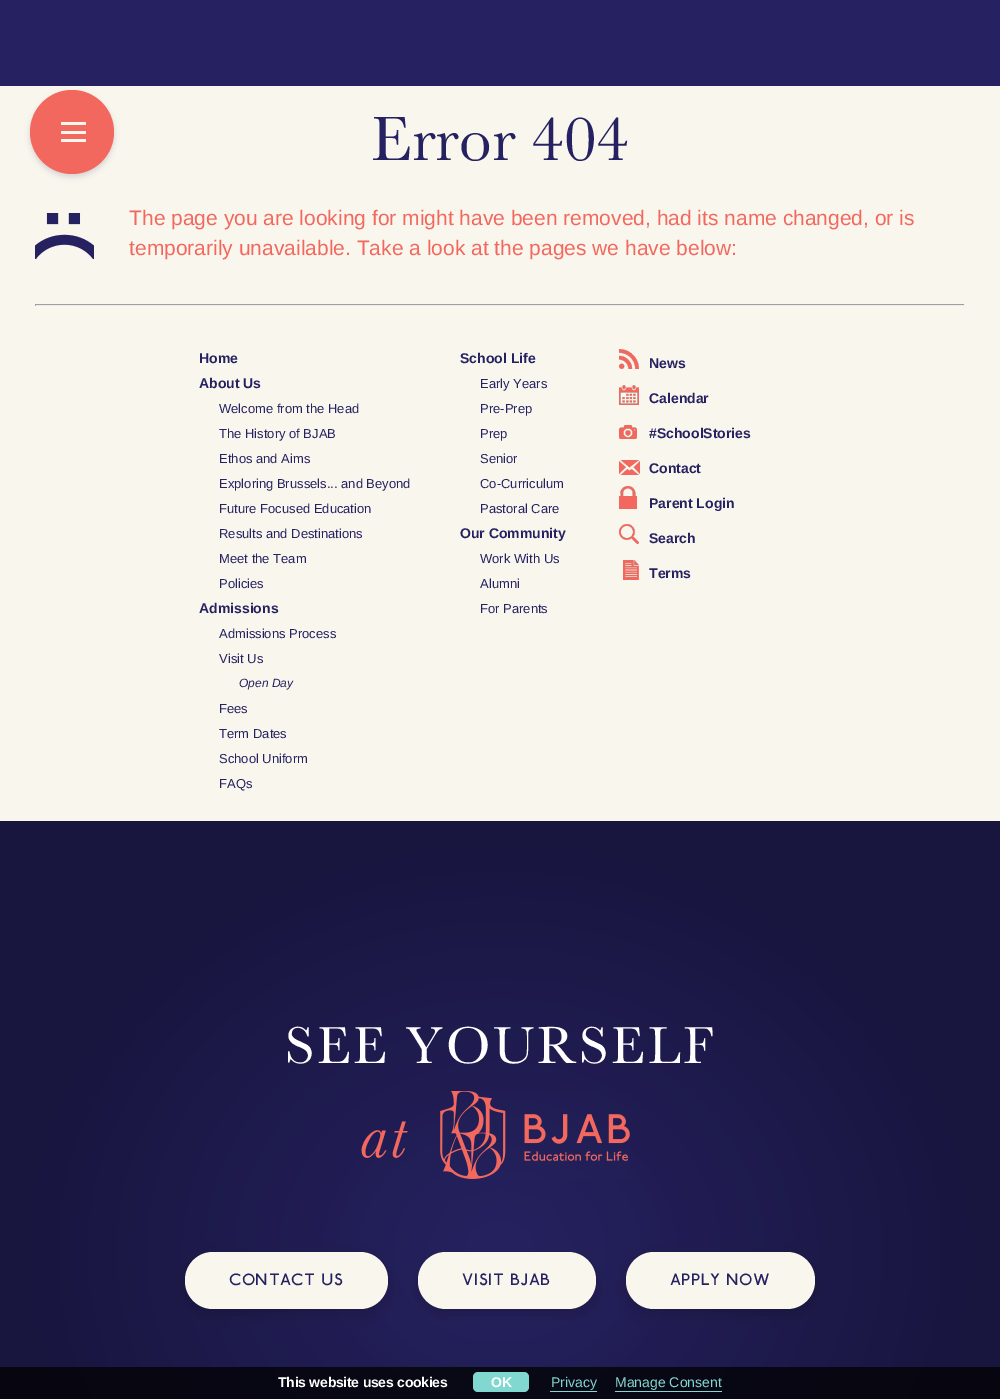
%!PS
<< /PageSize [1000 1399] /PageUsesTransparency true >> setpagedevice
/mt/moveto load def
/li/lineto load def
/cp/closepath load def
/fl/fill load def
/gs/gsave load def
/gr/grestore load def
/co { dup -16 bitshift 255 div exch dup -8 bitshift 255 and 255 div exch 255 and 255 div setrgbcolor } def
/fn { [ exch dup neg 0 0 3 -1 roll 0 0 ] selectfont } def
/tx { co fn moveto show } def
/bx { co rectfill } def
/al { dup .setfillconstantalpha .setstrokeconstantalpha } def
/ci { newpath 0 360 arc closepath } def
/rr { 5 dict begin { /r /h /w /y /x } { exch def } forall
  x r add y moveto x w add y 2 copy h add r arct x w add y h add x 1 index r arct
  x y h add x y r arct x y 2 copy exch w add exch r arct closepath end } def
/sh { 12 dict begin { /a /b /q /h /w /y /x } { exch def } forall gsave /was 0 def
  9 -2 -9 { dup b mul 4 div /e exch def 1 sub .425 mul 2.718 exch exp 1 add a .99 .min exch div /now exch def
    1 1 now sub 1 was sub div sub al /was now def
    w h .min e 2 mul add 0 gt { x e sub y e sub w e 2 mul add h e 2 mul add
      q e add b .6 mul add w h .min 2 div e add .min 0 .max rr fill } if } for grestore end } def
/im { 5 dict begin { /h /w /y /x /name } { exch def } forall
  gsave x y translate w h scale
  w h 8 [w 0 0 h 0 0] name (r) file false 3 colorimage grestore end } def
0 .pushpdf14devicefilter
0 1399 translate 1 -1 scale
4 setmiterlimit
0 0 1000 1399 16#F9F7ED bx
0 0 1000 86 16#262262 bx
16#18153E co
30 93 84 84 42 3 .15 sh
16#F2685E co
72 132 42 ci fl
61 122 25 3 16#F9F7ED bx
61 131 25 3 16#F9F7ED bx
61 139 25 3 16#F9F7ED bx
(media/1.raw) 35 213 59 46 im
35 304 930 1 16#9F9F9F bx
964 304 1 2 16#EEEEEE bx
35 305 930 1 16#EEEEEE bx
35 304 1 2 16#9F9F9F bx
(media/2.raw) 619 349 20 20 im
(media/3.raw) 619 385 20 20 im
(media/4.raw) 619 425 18 14 im
(media/5.raw) 619 460 21 15 im
(media/6.raw) 619 486 18 23 im
(media/7.raw) 619 524 20 20 im
(media/8.raw) 623 560 16 20 im
gs 0 821 mt 1000 821 li 1000 1367 li 0 1367 li cp clip newpath 500 1251 translate 707 607 scale
<< /ShadingType 3 /ColorSpace /DeviceRGB /Coords [0 0 0 0 0 1] /Extend [true true] /Function << /FunctionType 3 /Domain [0 1] /Functions [<< /FunctionType 2 /Domain [0 1] /C0 [.149 .133 .38] /C1 [.094 .082 .243] /N 1 >> << /FunctionType 2 /Domain [0 1] /C0 [.094 .082 .243] /C1 [.094 .082 .243] /N 1 >>] /Bounds [.7] /Encode [0 1 0 1] >> >> shfill gr
gs 0 1367 mt 1000 1367 li 1000 1399 li 0 1399 li cp clip newpath 500 1251 translate 707 607 scale
<< /ShadingType 3 /ColorSpace /DeviceRGB /Coords [0 0 0 0 0 1] /Extend [true true] /Function << /FunctionType 3 /Domain [0 1] /Functions [<< /FunctionType 2 /Domain [0 1] /C0 [.039 .035 .094] /C1 [.024 .02 .063] /N 1 >> << /FunctionType 2 /Domain [0 1] /C0 [.024 .02 .063] /C1 [.024 .02 .063] /N 1 >>] /Bounds [.7] /Encode [0 1 0 1] >> >> shfill gr
(media/9.raw) 440 1091 190 88 im
16#000000 co
185 1257 203 57 28 8 .16 sh
16#F9F7ED co
185 1252 203 57 28 rr fl
16#000000 co
418 1257 178 57 28 8 .16 sh
16#F9F7ED co
418 1252 178 57 28 rr fl
16#000000 co
626 1257 189 57 28 8 .16 sh
16#F9F7ED co
626 1252 189 57 28 rr fl
16#81D8D0 co
473 1372 56 20 5 rr fl
550 1391 47 1 16#81D8D0 bx
615 1391 107 1 16#81D8D0 bx
(Error 404) 371 160 /Baskerville-Regular 65 16#262262 tx
(The page you are looking for might have been removed, had its name changed, or is) 129 225 /LiberationSans-Regular 21 16#F2685E tx
(temporarily unavailable. Take a look at the pages we have below:) 129 255 /LiberationSans-Regular 21 16#F2685E tx
(Home) 199 363 /LiberationSans-Bold 14 16#262262 tx
(About Us) 199 388 /LiberationSans-Bold 14 16#262262 tx
(Welcome from the Head) 219 413 /LiberationSans-Regular 13 16#262262 tx
(The History of BJAB) 219 438 /LiberationSans-Regular 13 16#262262 tx
(Ethos and Aims) 219 463 /LiberationSans-Regular 13 16#262262 tx
(Exploring Brussels... and Beyond) 219 488 /LiberationSans-Regular 13 16#262262 tx
(Future Focused Education) 219 513 /LiberationSans-Regular 13 16#262262 tx
(Results and Destinations) 219 538 /LiberationSans-Regular 13 16#262262 tx
(Meet the Team) 219 563 /LiberationSans-Regular 13 16#262262 tx
(Policies) 219 588 /LiberationSans-Regular 13 16#262262 tx
(Admissions) 199 613 /LiberationSans-Bold 14 16#262262 tx
(Admissions Process) 219 638 /LiberationSans-Regular 13 16#262262 tx
(Visit Us) 219 663 /LiberationSans-Regular 13 16#262262 tx
(Open Day) 239 687 /LiberationSans-Italic 12 16#262262 tx
(Fees) 219 713 /LiberationSans-Regular 13 16#262262 tx
(Term Dates) 219 738 /LiberationSans-Regular 13 16#262262 tx
(School Uniform) 219 763 /LiberationSans-Regular 13 16#262262 tx
(FAQs) 219 788 /LiberationSans-Regular 13 16#262262 tx
(School Life) 460 363 /LiberationSans-Bold 14 16#262262 tx
(Early Years) 480 388 /LiberationSans-Regular 13 16#262262 tx
(Pre-Prep) 480 413 /LiberationSans-Regular 13 16#262262 tx
(Prep) 480 438 /LiberationSans-Regular 13 16#262262 tx
(Senior) 480 463 /LiberationSans-Regular 13 16#262262 tx
(Co-Curriculum) 480 488 /LiberationSans-Regular 13 16#262262 tx
(Pastoral Care) 480 513 /LiberationSans-Regular 13 16#262262 tx
(Our Community) 460 538 /LiberationSans-Bold 14 16#262262 tx
(Work With Us) 480 563 /LiberationSans-Regular 13 16#262262 tx
(Alumni) 480 588 /LiberationSans-Regular 13 16#262262 tx
(For Parents) 480 613 /LiberationSans-Regular 13 16#262262 tx
(News) 649 368 /LiberationSans-Bold 14 16#262262 tx
(Calendar) 649 403 /LiberationSans-Bold 14 16#262262 tx
(#SchoolStories) 649 438 /LiberationSans-Bold 14 16#262262 tx
(Contact) 649 473 /LiberationSans-Bold 14 16#262262 tx
(Parent Login) 649 508 /LiberationSans-Bold 14 16#262262 tx
(Search) 649 543 /LiberationSans-Bold 14 16#262262 tx
(Terms) 649 578 /LiberationSans-Bold 14 16#262262 tx
/Baskerville-Regular 54 fn
16#FFFFFF co
285 1063 mt 2.75 0 (SEE YOURSELF) ashow
/Baskerville-Italic 65 fn
16#F2685E co
360 1157 mt 3 0 (at) ashow
/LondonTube-Regular 16 fn
16#262262 co
229 1285 mt .75 0 (CONTACT US) ashow
462 1285 mt .75 0 (VISIT BJAB) ashow
670 1285 mt .75 0 (APPLY NOW) ashow
/LiberationSans-Bold 14 fn
16#FFFFFF co
278 1387 mt -.25 0 (This website uses cookies) ashow
(OK) 491 1387 /LiberationSans-Bold 14 16#FFFFFF tx
(Privacy) 551 1387 /LiberationSans-Regular 14 16#81D8D0 tx
(Manage Consent) 615 1387 /LiberationSans-Regular 14 16#81D8D0 tx
.poppdf14devicefilter showpage
